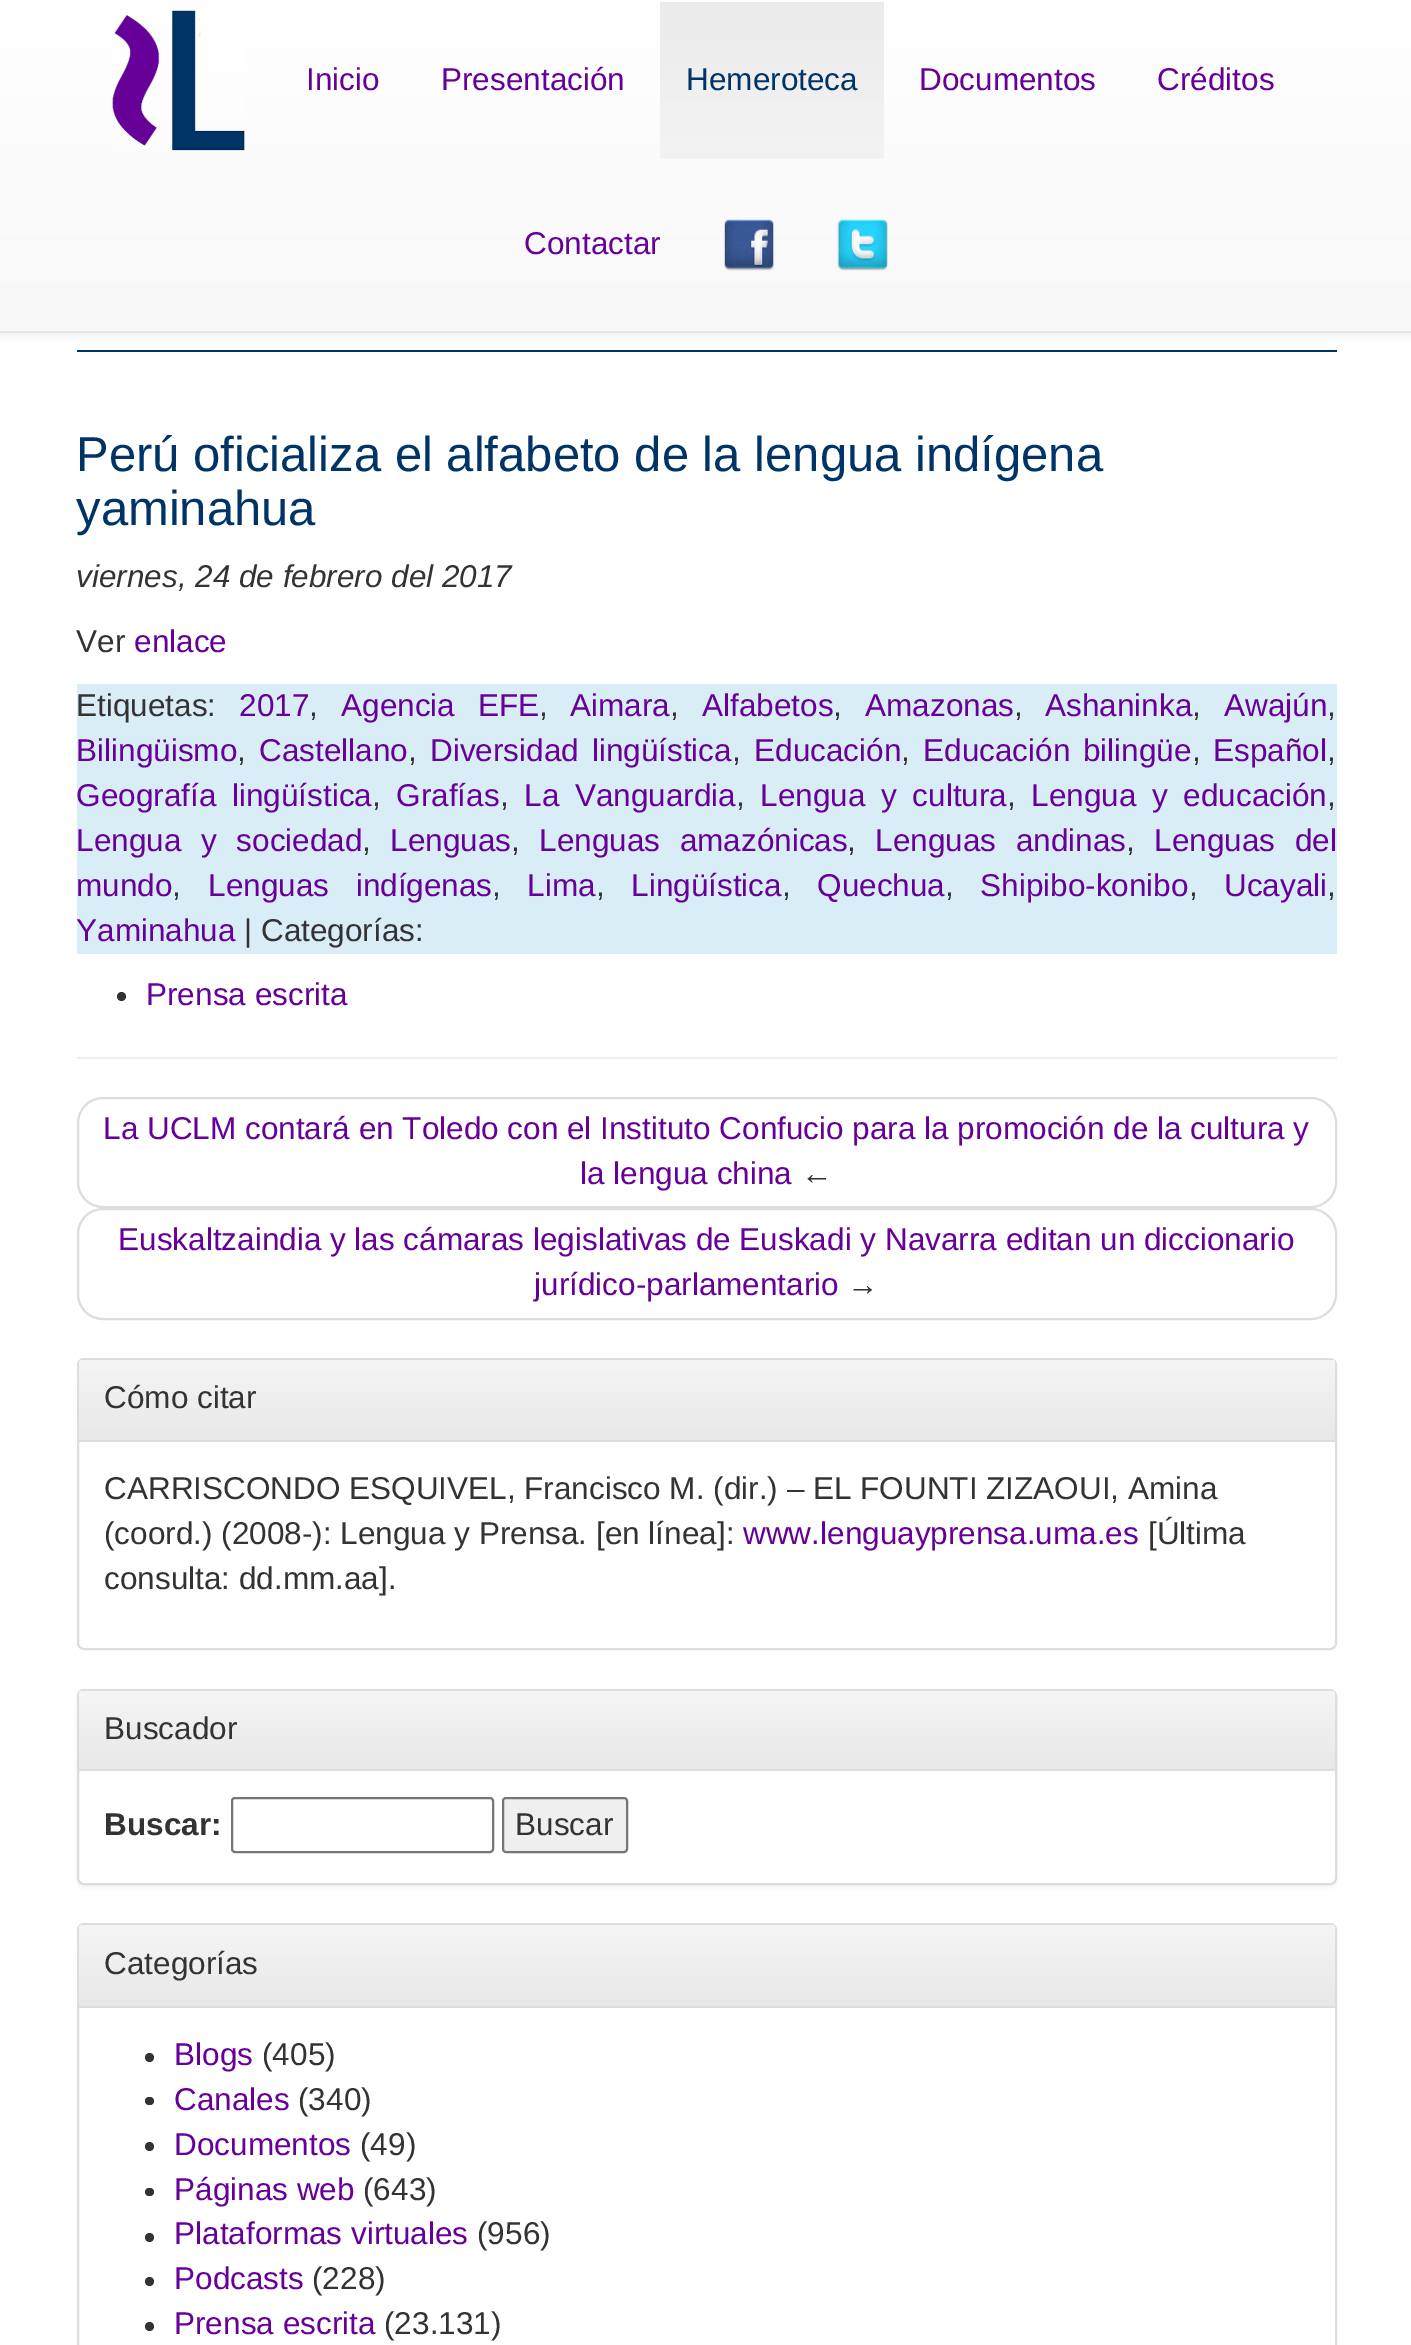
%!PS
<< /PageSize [1411 2345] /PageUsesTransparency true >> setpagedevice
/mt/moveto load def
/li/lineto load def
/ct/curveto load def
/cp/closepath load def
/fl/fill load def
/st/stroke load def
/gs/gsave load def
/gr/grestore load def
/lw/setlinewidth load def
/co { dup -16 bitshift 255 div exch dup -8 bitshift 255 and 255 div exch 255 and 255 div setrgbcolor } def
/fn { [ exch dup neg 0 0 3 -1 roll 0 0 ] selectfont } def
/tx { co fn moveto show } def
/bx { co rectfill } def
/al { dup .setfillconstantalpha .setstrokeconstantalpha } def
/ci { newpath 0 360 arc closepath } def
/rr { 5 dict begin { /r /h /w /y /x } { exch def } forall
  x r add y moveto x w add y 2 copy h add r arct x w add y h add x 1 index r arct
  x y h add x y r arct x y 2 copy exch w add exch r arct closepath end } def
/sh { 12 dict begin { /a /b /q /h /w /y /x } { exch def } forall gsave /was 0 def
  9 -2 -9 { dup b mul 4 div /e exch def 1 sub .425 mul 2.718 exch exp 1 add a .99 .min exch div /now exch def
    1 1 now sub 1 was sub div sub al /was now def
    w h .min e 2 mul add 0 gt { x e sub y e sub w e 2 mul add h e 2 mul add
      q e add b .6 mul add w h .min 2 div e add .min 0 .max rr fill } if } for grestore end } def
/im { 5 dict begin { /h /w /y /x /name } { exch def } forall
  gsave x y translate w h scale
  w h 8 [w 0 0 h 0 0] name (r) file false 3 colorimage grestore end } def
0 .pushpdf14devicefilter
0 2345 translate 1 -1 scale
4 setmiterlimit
0 0 1411 2345 16#FFFFFF bx
16#000000 co
0 2 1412 332 0 4.5 .07 sh
gs 0 0 mt 1411 0 li 1411 331 li 0 331 li cp clip newpath
<< /ShadingType 2 /ColorSpace /DeviceRGB /Coords [706 0 706 331] /Extend [true true] /Function << /FunctionType 2 /Domain [0 1] /C0 [1 1 1] /C1 [.973 .973 .973] /N 1 >> >> shfill gr
0 331 1411 2 16#E7E7E7 bx
(media/1.raw) 112 10 133 141 im
gs 660 2 mt 884 2 li 884 159 li 660 159 li cp clip newpath
<< /ShadingType 2 /ColorSpace /DeviceRGB /Coords [772 1.7 772 159] /Extend [true true] /Function << /FunctionType 2 /Domain [0 1] /C0 [.922 .922 .922] /C1 [.953 .953 .953] /N 1 >> >> shfill gr
(media/2.raw) 724 219 51 52 im
(media/3.raw) 837 219 51 52 im
77 350 1260 2 16#003466 bx
77 684 1260 270 16#D9EDF7 bx
16#333333 co
121.5 996.5 4.5 ci fl
77 1057 1260 2 16#EEEEEE bx
16#DDDDDD co
2 lw
78 1098 1258 109 25 rr st
78 1209 1258 110 25 rr st
78 1359 1258 290 6 rr st
gs 84 1360 mt 1330 1360 li 1333 1360 1335 1362 1335 1365 ct 1335 1440 li 79 1440 li 79 1365 li 79 1362 81 1360 84 1360 ct cp clip newpath
<< /ShadingType 2 /ColorSpace /DeviceRGB /Coords [707 1360 707 1440] /Extend [true true] /Function << /FunctionType 2 /Domain [0 1] /C0 [.961 .961 .961] /C1 [.91 .91 .91] /N 1 >> >> shfill gr
79 1440 1256 2 16#DDDDDD bx
16#000000 co
77 1691 1260 196 7 2 .05 sh
16#FFFFFF co
78 1690 1258 194 6 rr gs fl gr
16#DDDDDD co
st
gs 84 1691 mt 1330 1691 li 1333 1691 1335 1693 1335 1696 ct 1335 1769 li 79 1769 li 79 1696 li 79 1693 81 1691 84 1691 ct cp clip newpath
<< /ShadingType 2 /ColorSpace /DeviceRGB /Coords [707 1691 707 1769] /Extend [true true] /Function << /FunctionType 2 /Domain [0 1] /C0 [.961 .961 .961] /C1 [.91 .91 .91] /N 1 >> >> shfill gr
79 1769 1256 2 16#DDDDDD bx
16#767676 co
232 1798 261 54 3 rr st
16#EFEFEF co
503 1798 124 54 3 rr gs fl gr
16#767676 co
st
16#DDDDDD co
78 1924 1258 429 6 rr st
gs 84 1925 mt 1330 1925 li 1333 1925 1335 1927 1335 1930 ct 1335 2006 li 79 2006 li 79 1930 li 79 1927 81 1925 84 1925 ct cp clip newpath
<< /ShadingType 2 /ColorSpace /DeviceRGB /Coords [707 1925 707 2006] /Extend [true true] /Function << /FunctionType 2 /Domain [0 1] /C0 [.961 .961 .961] /C1 [.91 .91 .91] /N 1 >> >> shfill gr
79 2006 1256 2 16#DDDDDD bx
16#333333 co
149.5 2057.5 4.5 ci fl
145 2097 9 8 4 rr fl
149.5 2146.5 4.5 ci fl
145 2188 9 8 4 rr fl
149.5 2237.5 4.5 ci fl
149.5 2281.5 4.5 ci fl
149.5 2326.5 4.5 ci fl
(Inicio) 306 90 /LiberationSans-Regular 31.5 16#670099 tx
(Presentación) 441 90 /LiberationSans-Regular 31.5 16#670099 tx
(Hemeroteca) 686 90 /LiberationSans-Regular 31.5 16#003466 tx
(Documentos) 919 90 /LiberationSans-Regular 31.5 16#670099 tx
(Créditos) 1157 90 /LiberationSans-Regular 31.5 16#670099 tx
(Contactar) 524 254 /LiberationSans-Regular 31.5 16#670099 tx
(Perú oficializa el alfabeto de la lengua indígena) 76 471 /LiberationSans-Regular 49 16#003466 tx
(yaminahua) 76 525 /LiberationSans-Regular 49 16#003466 tx
(viernes, 24 de febrero del 2017) 76 587 /LiberationSans-Italic 31.5 16#333333 tx
(Ver) 76 652 /LiberationSans-Regular 31.5 16#333333 tx
(enlace) 134 652 /LiberationSans-Regular 31.5 16#670099 tx
(Etiquetas:) 76 716 /LiberationSans-Regular 31.5 16#333333 tx
(2017) 239 716 /LiberationSans-Regular 31.5 16#670099 tx
(,) 309 716 /LiberationSans-Regular 31.5 16#333333 tx
16#670099 co
341 716 mt 14 0 32 (Agencia EFE) widthshow
(,) 539 716 /LiberationSans-Regular 31.5 16#333333 tx
(Aimara) 570 716 /LiberationSans-Regular 31.5 16#670099 tx
(,) 670 716 /LiberationSans-Regular 31.5 16#333333 tx
(Alfabetos) 702 716 /LiberationSans-Regular 31.5 16#670099 tx
(,) 833 716 /LiberationSans-Regular 31.5 16#333333 tx
(Amazonas) 865 716 /LiberationSans-Regular 31.5 16#670099 tx
(,) 1014 716 /LiberationSans-Regular 31.5 16#333333 tx
(Ashaninka) 1045 716 /LiberationSans-Regular 31.5 16#670099 tx
(,) 1192 716 /LiberationSans-Regular 31.5 16#333333 tx
(Awajún) 1224 716 /LiberationSans-Regular 31.5 16#670099 tx
(,) 1327 716 /LiberationSans-Regular 31.5 16#333333 tx
(Bilingüismo) 76 761 /LiberationSans-Regular 31.5 16#670099 tx
(,) 237 761 /LiberationSans-Regular 31.5 16#333333 tx
(Castellano) 259 761 /LiberationSans-Regular 31.5 16#670099 tx
(,) 408 761 /LiberationSans-Regular 31.5 16#333333 tx
16#670099 co
430 761 mt 4 0 32 (Diversidad lingüística) widthshow
(,) 732 761 /LiberationSans-Regular 31.5 16#333333 tx
(Educación) 754 761 /LiberationSans-Regular 31.5 16#670099 tx
(,) 901 761 /LiberationSans-Regular 31.5 16#333333 tx
16#670099 co
923 761 mt 4 0 32 (Educación bilingüe) widthshow
(,) 1192 761 /LiberationSans-Regular 31.5 16#333333 tx
(Español) 1213 761 /LiberationSans-Regular 31.5 16#670099 tx
(,) 1327 761 /LiberationSans-Regular 31.5 16#333333 tx
16#670099 co
76 806 mt 7 0 32 (Geografía lingüística) widthshow
(,) 372 806 /LiberationSans-Regular 31.5 16#333333 tx
(Grafías) 396 806 /LiberationSans-Regular 31.5 16#670099 tx
(,) 500 806 /LiberationSans-Regular 31.5 16#333333 tx
16#670099 co
524 806 mt 7 0 32 (La Vanguardia) widthshow
(,) 736 806 /LiberationSans-Regular 31.5 16#333333 tx
16#670099 co
760 806 mt 7 0 32 (Lengua y cultura) widthshow
(,) 1007 806 /LiberationSans-Regular 31.5 16#333333 tx
16#670099 co
1031 806 mt 7 0 32 (Lengua y educación) widthshow
(,) 1327 806 /LiberationSans-Regular 31.5 16#333333 tx
16#670099 co
76 851 mt 11 0 32 (Lengua y sociedad) widthshow
(,) 362 851 /LiberationSans-Regular 31.5 16#333333 tx
(Lenguas) 390 851 /LiberationSans-Regular 31.5 16#670099 tx
(,) 511 851 /LiberationSans-Regular 31.5 16#333333 tx
16#670099 co
539 851 mt 11 0 32 (Lenguas amazónicas) widthshow
(,) 847 851 /LiberationSans-Regular 31.5 16#333333 tx
16#670099 co
875 851 mt 11 0 32 (Lenguas andinas) widthshow
(,) 1126 851 /LiberationSans-Regular 31.5 16#333333 tx
16#670099 co
1154 851 mt 11 0 32 (Lenguas del) widthshow
(mundo) 76 896 /LiberationSans-Regular 31.5 16#670099 tx
(,) 172 896 /LiberationSans-Regular 31.5 16#333333 tx
16#670099 co
208 896 mt 18 0 32 (Lenguas indígenas) widthshow
(,) 492 896 /LiberationSans-Regular 31.5 16#333333 tx
(Lima) 527 896 /LiberationSans-Regular 31.5 16#670099 tx
(,) 596 896 /LiberationSans-Regular 31.5 16#333333 tx
(Lingüística) 631 896 /LiberationSans-Regular 31.5 16#670099 tx
(,) 782 896 /LiberationSans-Regular 31.5 16#333333 tx
(Quechua) 817 896 /LiberationSans-Regular 31.5 16#670099 tx
(,) 945 896 /LiberationSans-Regular 31.5 16#333333 tx
(Shipibo-konibo) 980 896 /LiberationSans-Regular 31.5 16#670099 tx
(,) 1189 896 /LiberationSans-Regular 31.5 16#333333 tx
(Ucayali) 1224 896 /LiberationSans-Regular 31.5 16#670099 tx
(,) 1327 896 /LiberationSans-Regular 31.5 16#333333 tx
(Yaminahua) 76 941 /LiberationSans-Regular 31.5 16#670099 tx
(| Categorías:) 244 941 /LiberationSans-Regular 31.5 16#333333 tx
(Prensa escrita) 146 1005 /LiberationSans-Regular 31.5 16#670099 tx
(La UCLM contará en Toledo con el Instituto Confucio para la promoción de la cultura y) 103 1139 /LiberationSans-Regular 31.5 16#670099 tx
(la lengua china) 580 1184 /LiberationSans-Regular 31.5 16#670099 tx
(←) 801 1184 /LiberationSans-Regular 31.5 16#333333 tx
(Euskaltzaindia y las cámaras legislativas de Euskadi y Navarra editan un diccionario) 118 1250 /LiberationSans-Regular 31.5 16#670099 tx
(jurídico-parlamentario) 534 1295 /LiberationSans-Regular 31.5 16#670099 tx
(→) 847 1295 /LiberationSans-Regular 31.5 16#333333 tx
(Cómo citar) 104 1408 /LiberationSans-Regular 31.5 16#333333 tx
(CARRISCONDO ESQUIVEL, Francisco M. \(dir.\) – EL FOUNTI ZIZAOUI, Amina) 104 1499 /LiberationSans-Regular 31.5 16#333333 tx
(\(coord.\) \(2008-\): Lengua y Prensa. [en línea]:) 104 1544 /LiberationSans-Regular 31.5 16#333333 tx
(www.lenguayprensa.uma.es) 743 1544 /LiberationSans-Regular 31.5 16#670099 tx
([Última) 1148 1544 /LiberationSans-Regular 31.5 16#333333 tx
(consulta: dd.mm.aa].) 104 1589 /LiberationSans-Regular 31.5 16#333333 tx
(Buscador) 104 1739 /LiberationSans-Regular 31.5 16#333333 tx
(Buscar:) 104 1835 /LiberationSans-Bold 31.5 16#333333 tx
(Buscar) 515 1835 /LiberationSans-Regular 31.5 16#333333 tx
(Categorías) 104 1974 /LiberationSans-Regular 31.5 16#333333 tx
(Blogs) 174 2065 /LiberationSans-Regular 31.5 16#670099 tx
(\(405\)) 262 2065 /LiberationSans-Regular 31.5 16#333333 tx
(Canales) 174 2110 /LiberationSans-Regular 31.5 16#670099 tx
(\(340\)) 298 2110 /LiberationSans-Regular 31.5 16#333333 tx
(Documentos) 174 2155 /LiberationSans-Regular 31.5 16#670099 tx
(\(49\)) 360 2155 /LiberationSans-Regular 31.5 16#333333 tx
(Páginas web) 174 2200 /LiberationSans-Regular 31.5 16#670099 tx
(\(643\)) 363 2200 /LiberationSans-Regular 31.5 16#333333 tx
(Plataformas virtuales) 174 2244 /LiberationSans-Regular 31.5 16#670099 tx
(\(956\)) 477 2244 /LiberationSans-Regular 31.5 16#333333 tx
(Podcasts) 174 2289 /LiberationSans-Regular 31.5 16#670099 tx
(\(228\)) 312 2289 /LiberationSans-Regular 31.5 16#333333 tx
(Prensa escrita) 174 2334 /LiberationSans-Regular 31.5 16#670099 tx
(\(23.131\)) 384 2334 /LiberationSans-Regular 31.5 16#333333 tx
.poppdf14devicefilter showpage
